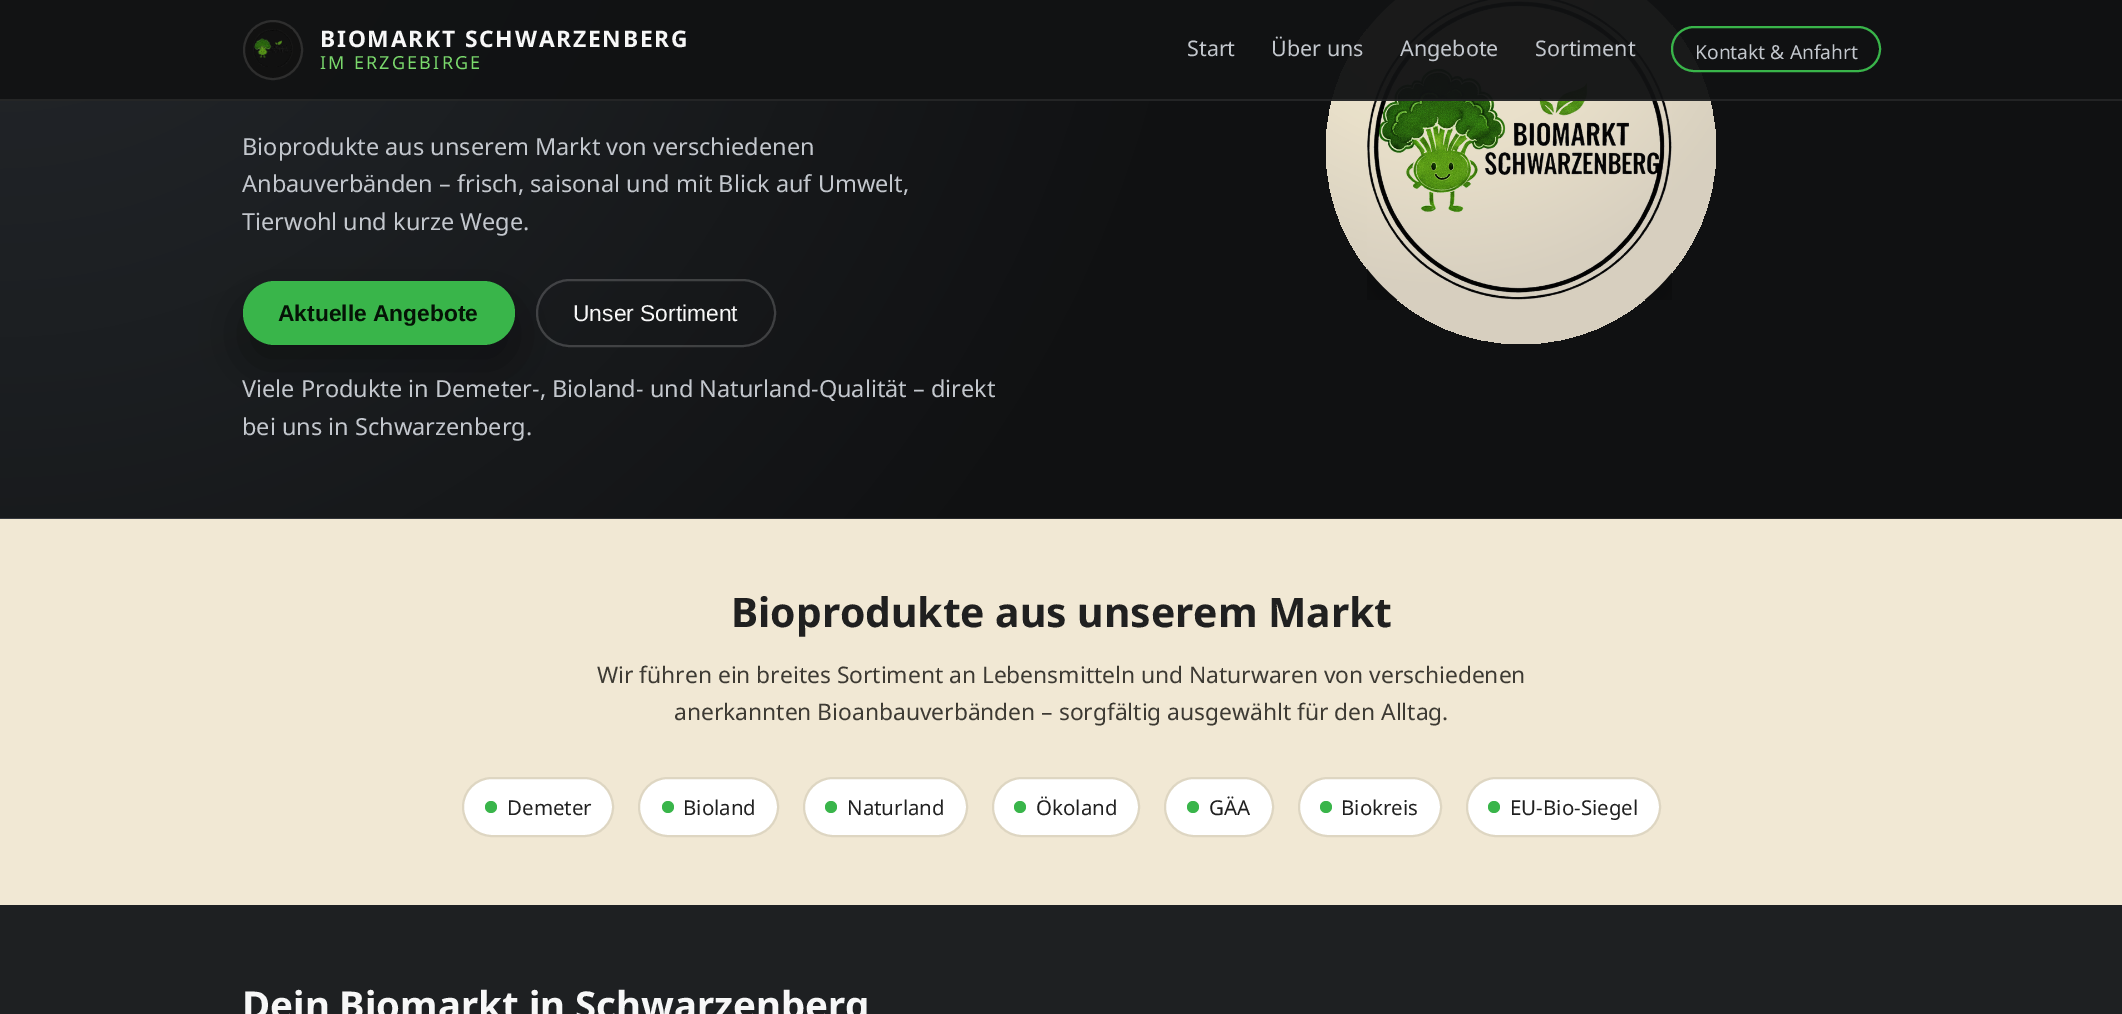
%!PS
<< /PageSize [2122 1014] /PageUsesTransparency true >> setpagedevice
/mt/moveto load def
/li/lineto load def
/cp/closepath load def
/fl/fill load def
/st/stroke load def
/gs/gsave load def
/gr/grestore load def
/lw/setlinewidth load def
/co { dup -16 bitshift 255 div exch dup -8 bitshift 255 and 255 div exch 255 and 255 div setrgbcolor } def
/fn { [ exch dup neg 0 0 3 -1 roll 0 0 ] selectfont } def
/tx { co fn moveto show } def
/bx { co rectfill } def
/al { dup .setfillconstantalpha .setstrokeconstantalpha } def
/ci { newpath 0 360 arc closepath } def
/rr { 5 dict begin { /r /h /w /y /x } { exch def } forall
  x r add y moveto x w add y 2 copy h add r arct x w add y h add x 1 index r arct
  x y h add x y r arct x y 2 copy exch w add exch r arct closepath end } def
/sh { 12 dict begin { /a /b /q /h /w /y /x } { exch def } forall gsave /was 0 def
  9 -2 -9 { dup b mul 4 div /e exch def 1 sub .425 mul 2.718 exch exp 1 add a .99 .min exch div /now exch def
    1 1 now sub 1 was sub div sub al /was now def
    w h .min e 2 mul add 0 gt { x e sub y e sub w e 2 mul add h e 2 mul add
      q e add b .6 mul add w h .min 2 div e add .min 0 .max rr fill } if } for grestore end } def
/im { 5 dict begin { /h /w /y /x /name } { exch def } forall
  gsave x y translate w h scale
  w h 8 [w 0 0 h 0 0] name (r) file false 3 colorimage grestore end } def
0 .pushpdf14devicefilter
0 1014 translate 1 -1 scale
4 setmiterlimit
0 0 2122 1014 16#FFFFFF bx
gs 0 0 mt 2122 0 li 2122 518 li 0 518 li cp clip newpath 0 -225 translate 2249 2249 scale
<< /ShadingType 3 /ColorSpace /DeviceRGB /Coords [0 0 0 0 0 1] /Extend [true true] /Function << /FunctionType 3 /Domain [0 1] /Functions [<< /FunctionType 2 /Domain [0 1] /C0 [.149 .165 .184] /C1 [.063 .067 .071] /N 1 >> << /FunctionType 2 /Domain [0 1] /C0 [.063 .067 .071] /C1 [.063 .067 .071] /N 1 >>] /Bounds [.55] /Encode [0 1 0 1] >> >> shfill gr
gs 1521 149 195 ci clip newpath 1443 -46 translate 476 476 scale
<< /ShadingType 3 /ColorSpace /DeviceRGB /Coords [0 0 0 0 0 1] /Extend [true true] /Function << /FunctionType 3 /Domain [0 1] /Functions [<< /FunctionType 2 /Domain [0 1] /C0 [.945 .91 .831] /C1 [.91 .875 .788] /N 1 >> << /FunctionType 2 /Domain [0 1] /C0 [.91 .875 .788] /C1 [.843 .812 .749] /N 1 >> << /FunctionType 2 /Domain [0 1] /C0 [.843 .812 .749] /C1 [.843 .812 .749] /N 1 >>] /Bounds [.4 .7] /Encode [0 1 0 1 0 1] >> >> shfill gr
(media/2.raw) 1367 0 305 300 im
0.96 al
0 0 1710 101 16#111213 bx
0.08 al
0 99 2122 2 16#FFFFFF bx
1 al
16#111111 co
273 50 30 ci fl
0.12 al
16#FFFFFF co
2 lw
273 50 29 ci st
1 al
(media/1.raw) 253 29 40 38 im
16#39B54A co
1672 27 208 44 22 rr st
gs 0 518 mt 2122 518 li 2122 519 li 0 519 li cp clip newpath 0 518 translate 2249 2249 scale
<< /ShadingType 3 /ColorSpace /DeviceRGB /Coords [0 0 0 0 0 1] /Extend [true true] /Function << /FunctionType 3 /Domain [0 1] /Functions [<< /FunctionType 2 /Domain [0 1] /C0 [.216 .231 .251] /C1 [.137 .141 .145] /N 1 >> << /FunctionType 2 /Domain [0 1] /C0 [.137 .141 .145] /C1 [.137 .141 .145] /N 1 >>] /Bounds [.55] /Encode [0 1 0 1] >> >> shfill gr
16#000000 co
243 302 272 64 32 26 .4 sh
16#39B54A co
243 281 272 64 32 rr fl
0.18 al
16#FFFFFF co
537 280 238 66 33 rr st
1 al
0 519 2122 386 16#F1E8D4 bx
16#FFFFFF co
463 778 150 58 29 rr gs fl gr
16#DED6C2 co
st
16#39B54A co
491 807 6 ci fl
16#FFFFFF co
639 778 139 58 29 rr gs fl gr
16#DED6C2 co
st
16#39B54A co
668 807 6 ci fl
16#FFFFFF co
804 778 163 58 29 rr gs fl gr
16#DED6C2 co
st
16#39B54A co
831 807 6 ci fl
16#FFFFFF co
993 778 146 58 29 rr gs fl gr
16#DED6C2 co
st
16#39B54A co
1020 807 6 ci fl
16#FFFFFF co
1165 778 108 58 29 rr gs fl gr
16#DED6C2 co
st
16#39B54A co
1193 807 6 ci fl
16#FFFFFF co
1299 778 142 58 29 rr gs fl gr
16#DED6C2 co
st
16#39B54A co
1326 807 6 ci fl
16#FFFFFF co
1467 778 193 58 29 rr gs fl gr
16#DED6C2 co
st
16#39B54A co
1494 807 6 ci fl
0 905 2122 109 16#1E2022 bx
/NotoSans-Bold 22.8 fn
16#F7F7F7 co
320 47 mt 1.8 0 (BIOMARKT SCHWARZENBERG) ashow
/NotoSans-Regular 18 fn
16#7AD96C co
320 69 mt 2.2 0 (IM ERZGEBIRGE) ashow
(Start) 1187 56 /NotoSans-Regular 21.5 16#C3C7CD tx
(Über uns) 1271 56 /NotoSans-Regular 21.5 16#C3C7CD tx
(Angebote) 1400 56 /NotoSans-Regular 21.5 16#C3C7CD tx
(Sortiment) 1535 56 /NotoSans-Regular 21.5 16#C3C7CD tx
(Kontakt & Anfahrt) 1695 59 /NotoSans-Regular 19.25 16#C3C7CD tx
(Bioprodukte aus unserem Markt von verschiedenen) 242 155 /NotoSans-Regular 23.5 16#C3C7CD tx
(Anbauverbänden – frisch, saisonal und mit Blick auf Umwelt,) 242 192 /NotoSans-Regular 23.5 16#C3C7CD tx
(Tierwohl und kurze Wege.) 242 230 /NotoSans-Regular 23.5 16#C3C7CD tx
(Aktuelle Angebote) 278 321 /LiberationSans-Bold 22.8 16#051306 tx
(Unser Sortiment) 573 321 /LiberationSans-Regular 22.8 16#F7F7F7 tx
(Viele Produkte in Demeter-, Bioland- und Naturland-Qualität – direkt) 242 397 /NotoSans-Regular 23.5 16#C3C7CD tx
(bei uns in Schwarzenberg.) 242 435 /NotoSans-Regular 23.5 16#C3C7CD tx
(Bioprodukte aus unserem Markt) 731 627 /NotoSans-Bold 40.75 16#202020 tx
(Wir führen ein breites Sortiment an Lebensmitteln und Naturwaren von verschiedenen) 597 683 /NotoSans-Regular 22.8 16#3D3A33 tx
(anerkannten Bioanbauverbänden – sorgfältig ausgewählt für den Alltag.) 674 720 /NotoSans-Regular 22.8 16#3D3A33 tx
(Demeter) 507 815 /NotoSans-Regular 20.5 16#202020 tx
(Bioland) 683 815 /NotoSans-Regular 20.5 16#202020 tx
(Naturland) 847 815 /NotoSans-Regular 20.5 16#202020 tx
(Ökoland) 1036 815 /NotoSans-Regular 20.5 16#202020 tx
(GÄA) 1209 815 /NotoSans-Regular 20.5 16#202020 tx
(Biokreis) 1341 815 /NotoSans-Regular 20.5 16#202020 tx
(EU-Bio-Siegel) 1510 815 /NotoSans-Regular 20.5 16#202020 tx
(Dein Biomarkt in Schwarzenberg) 242 1019 /NotoSans-Bold 38.4 16#F7F7F7 tx
.poppdf14devicefilter showpage
